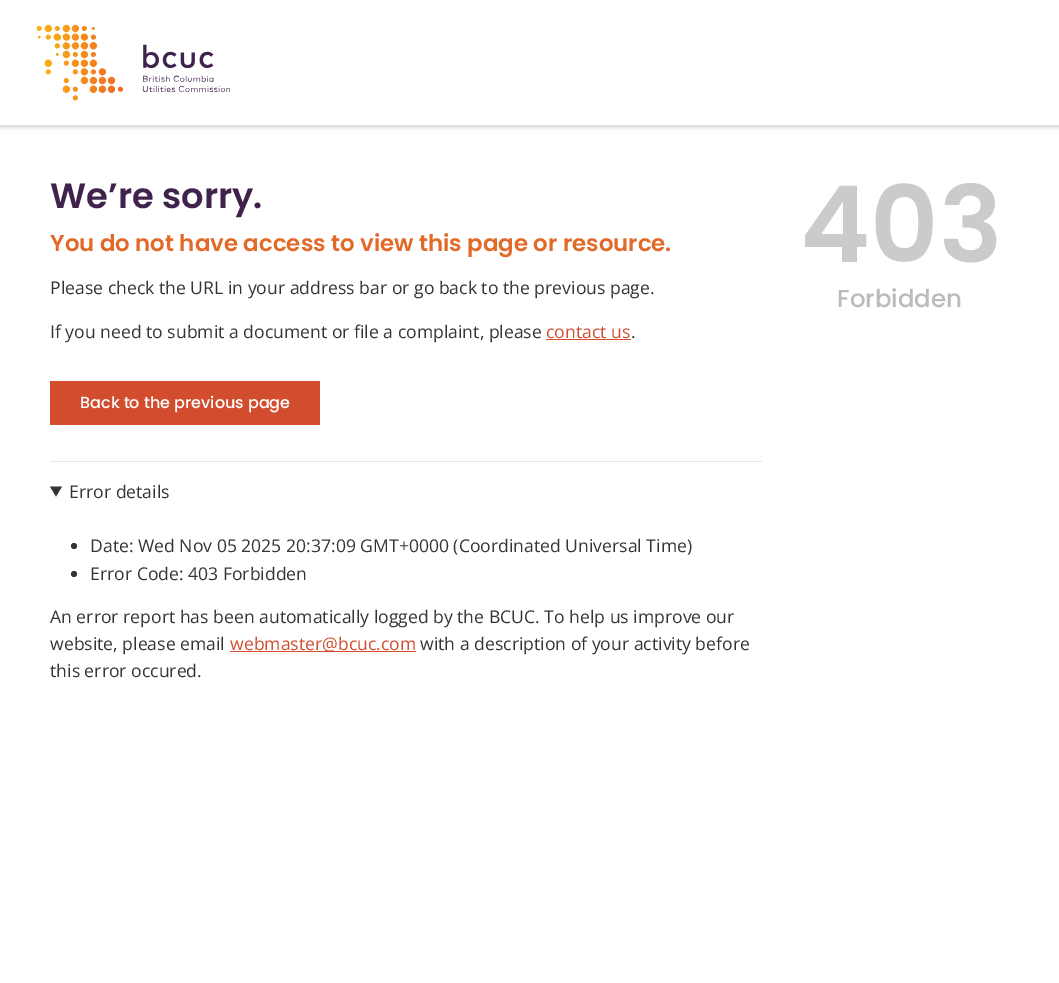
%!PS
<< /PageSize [1059 983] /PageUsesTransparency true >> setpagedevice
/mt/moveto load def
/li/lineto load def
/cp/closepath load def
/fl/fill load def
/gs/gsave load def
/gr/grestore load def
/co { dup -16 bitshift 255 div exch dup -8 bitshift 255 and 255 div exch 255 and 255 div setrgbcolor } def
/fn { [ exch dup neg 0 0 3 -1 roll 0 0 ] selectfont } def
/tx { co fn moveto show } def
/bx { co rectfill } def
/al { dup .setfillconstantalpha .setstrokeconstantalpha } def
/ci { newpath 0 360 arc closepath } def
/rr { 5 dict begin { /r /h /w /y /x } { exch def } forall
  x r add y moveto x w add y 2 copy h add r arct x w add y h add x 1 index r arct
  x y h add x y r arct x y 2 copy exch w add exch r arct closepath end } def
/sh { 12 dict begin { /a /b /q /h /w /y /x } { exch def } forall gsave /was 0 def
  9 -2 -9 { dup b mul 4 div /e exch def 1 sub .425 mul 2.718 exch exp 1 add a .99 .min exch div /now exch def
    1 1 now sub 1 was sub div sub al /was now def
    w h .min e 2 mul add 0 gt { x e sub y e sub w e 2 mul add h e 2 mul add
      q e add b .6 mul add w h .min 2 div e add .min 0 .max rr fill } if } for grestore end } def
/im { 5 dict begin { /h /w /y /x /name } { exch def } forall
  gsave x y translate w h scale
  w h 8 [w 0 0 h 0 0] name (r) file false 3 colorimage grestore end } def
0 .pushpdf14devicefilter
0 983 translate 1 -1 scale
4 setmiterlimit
0 0 1059 983 16#FFFFFF bx
gs
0 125 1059 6 rectclip
16#DDDDDD co
-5 27 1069 101 0 1.5 1 sh
gr
(media/1.raw) 36 24 195 77 im
546 339 85 1 16#D14D2E bx
50 381 270 44 16#D14D2E bx
50 461 712 1 16#E6E6E6 bx
16#343434 co
50 486.5 mt 62 486.5 li 56 496.5 li cp fl
74 546 3 ci fl
74 574 3 ci fl
230 651 186 1 16#D14D2E bx
(We’re sorry.) 50 208 /Poppins-SemiBold 35.25 16#40234C tx
(You do not have access to view this page or resource.) 50 251 /Poppins-SemiBold 22.9 16#E26A29 tx
(Please check the URL in your address bar or go back to the previous page.) 50 294 /OpenSans-Regular 17.6 16#343434 tx
(If you need to submit a document or file a complaint, please) 50 338 /OpenSans-Regular 17.6 16#343434 tx
(contact us) 546 338 /OpenSans-Regular 17.6 16#D14D2E tx
(.) 631 338 /OpenSans-Regular 17.6 16#343434 tx
(Back to the previous page) 80 408 /Poppins-Medium 16 16#FFFFFF tx
(Error details) 69 498 /OpenSans-Regular 17.6 16#343434 tx
(Date: Wed Nov 05 2025 20:37:09 GMT+0000 \(Coordinated Universal Time\)) 90 552 /OpenSans-Regular 17.6 16#343434 tx
(Error Code: 403 Forbidden) 90 580 /OpenSans-Regular 17.6 16#343434 tx
(An error report has been automatically logged by the BCUC. To help us improve our) 50 623 /OpenSans-Regular 17.6 16#343434 tx
(website, please email) 50 650 /OpenSans-Regular 17.6 16#343434 tx
(webmaster@bcuc.com) 230 650 /OpenSans-Regular 17.6 16#D14D2E tx
(with a description of your activity before) 420 650 /OpenSans-Regular 17.6 16#343434 tx
(this error occured.) 50 677 /OpenSans-Regular 17.6 16#343434 tx
(403) 800 262 /Poppins-SemiBold 106 16#CBCBCB tx
(Forbidden) 837 307 /Poppins-Medium 24.5 16#BBBBBB tx
.poppdf14devicefilter showpage
